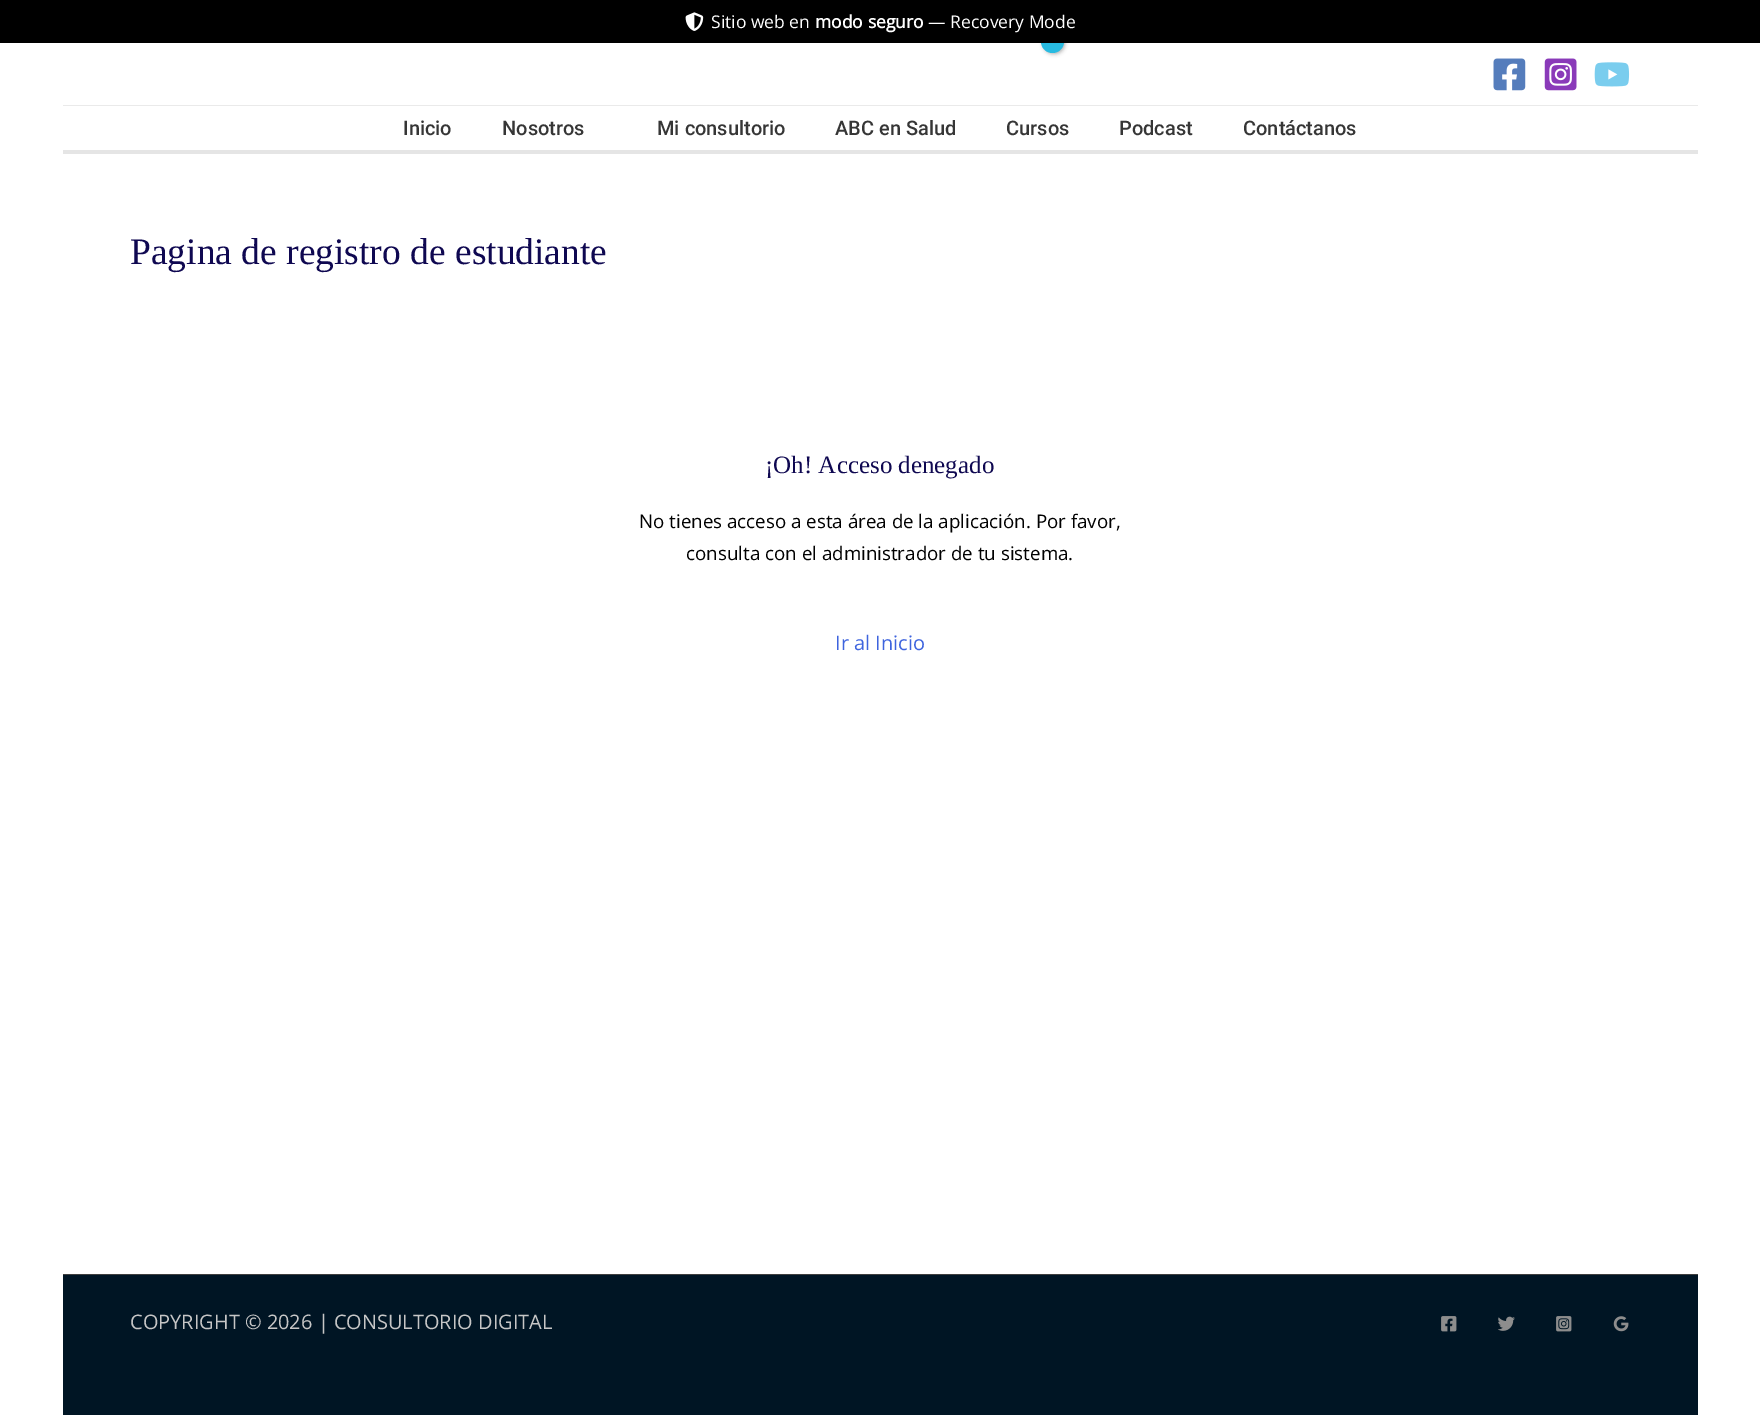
%!PS
<< /PageSize [1760 1415] /PageUsesTransparency true >> setpagedevice
/fl/fill load def
/co { dup -16 bitshift 255 div exch dup -8 bitshift 255 and 255 div exch 255 and 255 div setrgbcolor } def
/fn { [ exch dup neg 0 0 3 -1 roll 0 0 ] selectfont } def
/tx { co fn moveto show } def
/bx { co rectfill } def
/al { dup .setfillconstantalpha .setstrokeconstantalpha } def
/ci { newpath 0 360 arc closepath } def
/rr { 5 dict begin { /r /h /w /y /x } { exch def } forall
  x r add y moveto x w add y 2 copy h add r arct x w add y h add x 1 index r arct
  x y h add x y r arct x y 2 copy exch w add exch r arct closepath end } def
/sh { 12 dict begin { /a /b /q /h /w /y /x } { exch def } forall gsave /was 0 def
  9 -2 -9 { dup b mul 4 div /e exch def 1 sub .425 mul 2.718 exch exp 1 add a .99 .min exch div /now exch def
    1 1 now sub 1 was sub div sub al /was now def
    w h .min e 2 mul add 0 gt { x e sub y e sub w e 2 mul add h e 2 mul add
      q e add b .6 mul add w h .min 2 div e add .min 0 .max rr fill } if } for grestore end } def
/im { 5 dict begin { /h /w /y /x /name } { exch def } forall
  gsave x y translate w h scale
  w h 8 [w 0 0 h 0 0] name (r) file false 3 colorimage grestore end } def
0 .pushpdf14devicefilter
0 1415 translate 1 -1 scale
4 setmiterlimit
0 0 1760 1415 16#FFFFFF bx
16#000000 co
1043 31 22 23 11 2 .3 sh
16#28BBE1 co
1052.5 41.5 11.5 ci fl
0 0 1760 43 16#000000 bx
(media/1.raw) 685 12 19 19 im
63 105 1635 1 16#EAEAEA bx
(media/2.raw) 1493 58 33 33 im
(media/3.raw) 1544 58 33 33 im
(media/4.raw) 1594 62 36 25 im
63 150 1635 4 16#E5E5E5 bx
63 1275 1635 140 16#001524 bx
63 1274 1635 1 16#3F3F3F bx
(media/5.raw) 1441 1316 16 16 im
(media/6.raw) 1498 1316 17 15 im
(media/7.raw) 1556 1316 16 16 im
(media/8.raw) 1613 1316 16 16 im
(Sitio web en) 711 28 /OpenSans-Regular 17.5 16#FFFFFF tx
(modo seguro) 815 28 /OpenSans-Bold 17.5 16#FFFFFF tx
(— Recovery Mode) 928 28 /OpenSans-Regular 17.5 16#FFFFFF tx
(Inicio) 403 135 /Roboto-Medium 20 16#363636 tx
(Nosotros) 502 135 /Roboto-Medium 20 16#363636 tx
(Mi consultorio) 657 135 /Roboto-Medium 20 16#363636 tx
(ABC en Salud) 835 135 /Roboto-Medium 20 16#363636 tx
(Cursos) 1006 135 /Roboto-Medium 20 16#363636 tx
(Podcast) 1119 135 /Roboto-Medium 20 16#363636 tx
(Contáctanos) 1243 135 /Roboto-Medium 20 16#363636 tx
(Pagina de registro de estudiante) 130 264 /LiberationSerif-Regular 37.5 16#0F0851 tx
(¡Oh! Acceso denegado) 765 473 /LiberationSerif-Regular 25 16#0F0851 tx
(No tienes acceso a esta área de la aplicación. Por favor,) 639 528 /OpenSans-Regular 18.75 16#000000 tx
(consulta con el administrador de tu sistema.) 686 560 /OpenSans-Regular 18.75 16#000000 tx
(Ir al Inicio) 835 650 /OpenSans-Regular 20 16#3E64DE tx
(COPYRIGHT © 2026 | CONSULTORIO DIGITAL) 130 1329 /OpenSans-Regular 20 16#C6C6C6 tx
.poppdf14devicefilter showpage
